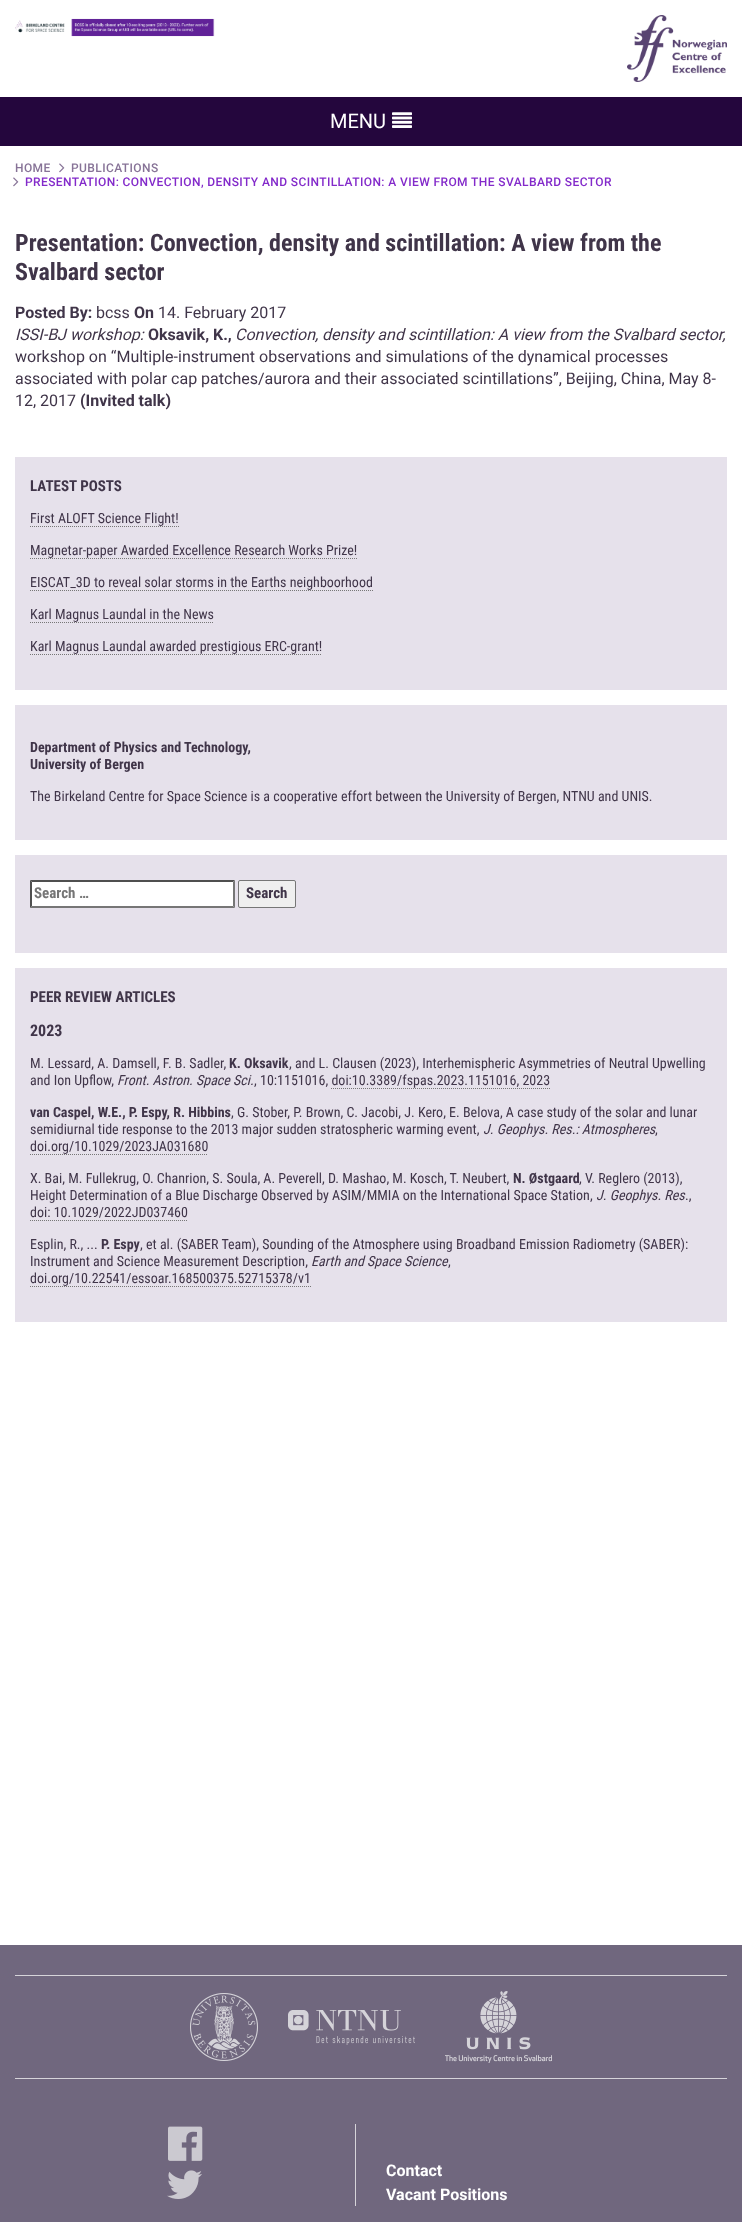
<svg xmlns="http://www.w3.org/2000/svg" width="742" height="2222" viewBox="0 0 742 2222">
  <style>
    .t1 { font: 20px Roboto; fill: #fff; }
    .t2 { font: 500 12px Roboto; letter-spacing: 0.4px; fill: #877397; }
    .t3 { font: 500 12px Roboto; letter-spacing: 0.4px; fill: #832aca; }
    .t4 { font: bold 24px Roboto Condensed; fill: #403549; }
    .t5 { font: bold 16px Roboto; fill: #403549; }
    .t6 { font: 16px Roboto; fill: #403549; }
    .t7 { font: italic 16px Roboto; fill: #403549; }
    .t8 { font: bold 15px Roboto Condensed; fill: #403549; }
    .t9 { font: 14px Roboto Condensed; fill: #403549; }
    .t10 { font: bold 14px Roboto Condensed; fill: #403549; }
    .t11 { font: bold 15px Roboto Condensed; fill: #757575; }
    .t12 { font: bold 16px Roboto Condensed; fill: #403549; }
    .t13 { font: italic 14px Roboto Condensed; fill: #403549; }
    .t14 { font: bold 16px Roboto; fill: #fff; }
  </style>
  <rect width="100%" height="100%" fill="#fff"/>
  <image x="15" y="18" width="200" height="19" href="images/1.png"/>
  <image x="627" y="15" width="100" height="67" href="images/2.png"/>
  <rect x="0" y="97" width="742" height="49" fill="#24063d"/>
  <text x="330" y="128" class="t1">MENU</text>
  <image x="392" y="112" width="20" height="16" href="images/3.png"/>
  <text x="15" y="172" class="t2">HOME</text>
  <image x="59" y="163" width="6" height="10" href="images/4.png"/>
  <text x="71" y="172" class="t2">PUBLICATIONS</text>
  <image x="13" y="177" width="6" height="10" href="images/4.png"/>
  <text x="25" y="186" class="t3">PRESENTATION: CONVECTION, DENSITY AND SCINTILLATION: A VIEW FROM THE SVALBARD SECTOR</text>
  <text x="15" y="251" class="t4">Presentation: Convection, density and scintillation: A view from the</text>
  <text x="15" y="280" class="t4">Svalbard sector</text>
  <text x="15" y="318" class="t5">Posted By:</text>
  <text x="96" y="318" class="t6">bcss</text>
  <text x="134" y="318" class="t5">On</text>
  <text x="158" y="318" class="t6">14. February 2017</text>
  <text x="15" y="340" class="t7">ISSI-BJ workshop:</text>
  <text x="148" y="340" class="t5">Oksavik, K.,</text>
  <text x="235" y="340" class="t7">Convection, density and scintillation: A view from the Svalbard sector,</text>
  <text x="15" y="362" class="t6">workshop on “Multiple-instrument observations and simulations of the dynamical processes</text>
  <text x="15" y="384" class="t6">associated with polar cap patches/aurora and their associated scintillations”, Beijing, China, May 8-</text>
  <text x="15" y="406" class="t6">12, 2017</text>
  <text x="80" y="406" class="t5">(Invited talk)</text>
  <rect x="15" y="457" width="712" height="233" fill="#e6e1eb"/>
  <text x="30" y="491" class="t8">LATEST POSTS</text>
  <text x="30" y="523" class="t9">First ALOFT Science Flight!</text>
  <path d="M30 526.5H179" fill="none" stroke="#777" stroke-dasharray="1 1"/>
  <text x="30" y="555" class="t9">Magnetar-paper Awarded Excellence Research Works Prize!</text>
  <path d="M30 558.5H357" fill="none" stroke="#777" stroke-dasharray="1 1"/>
  <text x="30" y="587" class="t9">EISCAT_3D to reveal solar storms in the Earths neighboorhood</text>
  <path d="M30 590.5H373" fill="none" stroke="#777" stroke-dasharray="1 1"/>
  <text x="30" y="619" class="t9">Karl Magnus Laundal in the News</text>
  <path d="M30 622.5H214" fill="none" stroke="#777" stroke-dasharray="1 1"/>
  <text x="30" y="651" class="t9">Karl Magnus Laundal awarded prestigious ERC-grant!</text>
  <path d="M30 654.5H322" fill="none" stroke="#777" stroke-dasharray="1 1"/>
  <rect x="15" y="705" width="712" height="135" fill="#e6e1eb"/>
  <text x="30" y="752" class="t10">Department of Physics and Technology,</text>
  <text x="30" y="769" class="t10">University of Bergen</text>
  <text x="30" y="801" class="t9">The Birkeland Centre for Space Science is a cooperative effort between the University of Bergen, NTNU and UNIS.</text>
  <rect x="15" y="855" width="712" height="98" fill="#e6e1eb"/>
  <rect x="30" y="880" width="205" height="28" fill="#fff"/>
  <path d="M30 880H235L233 882H32Z" fill="#4f4f4f"/>
  <path d="M235 880V908L233 906V882Z" fill="#767676"/>
  <path d="M235 908H30L32 906H233Z" fill="#767676"/>
  <path d="M30 908V880L32 882V906Z" fill="#4f4f4f"/>
  <text x="34" y="898" class="t11">Search …</text>
  <rect x="238.5" y="880.5" width="57" height="27" rx="1.5" fill="#efefef" stroke="#767676"/>
  <text x="246" y="898" class="t8">Search</text>
  <rect x="15" y="968" width="712" height="354" fill="#e6e1eb"/>
  <text x="30" y="1002" class="t8">PEER REVIEW ARTICLES</text>
  <text x="30" y="1036" class="t12">2023</text>
  <text x="30" y="1068" class="t9">M. Lessard, A. Damsell, F. B. Sadler,</text>
  <text x="229" y="1068" class="t10">K. Oksavik</text>
  <text x="289" y="1068" class="t9">, and L. Clausen (2023), Interhemispheric Asymmetries of Neutral Upwelling</text>
  <text x="30" y="1085" class="t9">and Ion Upflow,</text>
  <text x="117" y="1085" class="t13">Front. Astron. Space Sci.</text>
  <text x="254" y="1085" class="t9">, 10:1151016, doi:10.3389/fspas.2023.1151016, 2023</text>
  <path d="M331 1088.5H550" fill="none" stroke="#777" stroke-dasharray="1 1"/>
  <text x="30" y="1117" class="t10">van Caspel, W.E., P. Espy, R. Hibbins</text>
  <text x="231" y="1117" class="t9">, G. Stober, P. Brown, C. Jacobi, J. Kero, E. Belova, A case study of the solar and lunar</text>
  <text x="30" y="1134" class="t9">semidiurnal tide response to the 2013 major sudden stratospheric warming event,</text>
  <text x="483" y="1134" class="t13">J. Geophys. Res.: Atmospheres</text>
  <text x="655" y="1134" class="t9">,</text>
  <text x="30" y="1151" class="t9">doi.org/10.1029/2023JA031680</text>
  <path d="M30 1154.5H208" fill="none" stroke="#777" stroke-dasharray="1 1"/>
  <text x="30" y="1183" class="t9">X. Bai, M. Fullekrug, O. Chanrion, S. Soula, A. Peverell, D. Mashao, M. Kosch, T. Neubert,</text>
  <text x="513" y="1183" class="t10">N. Østgaard</text>
  <text x="579" y="1183" class="t9">, V. Reglero (2013),</text>
  <text x="30" y="1200" class="t9">Height Determination of a Blue Discharge Observed by ASIM/MMIA on the International Space Station,</text>
  <text x="596" y="1200" class="t13">J. Geophys. Res</text>
  <text x="685" y="1200" class="t9">.,</text>
  <text x="30" y="1217" class="t9">doi: 10.1029/2022JD037460</text>
  <path d="M30 1220.5H188" fill="none" stroke="#777" stroke-dasharray="1 1"/>
  <text x="30" y="1249" class="t9">Esplin, R., ...</text>
  <text x="101" y="1249" class="t10">P. Espy</text>
  <text x="140" y="1249" class="t9">, et al. (SABER Team), Sounding of the Atmosphere using Broadband Emission Radiometry (SABER):</text>
  <text x="30" y="1266" class="t9">Instrument and Science Measurement Description,</text>
  <text x="311" y="1266" class="t13">Earth and Space Science</text>
  <text x="448" y="1266" class="t9">,</text>
  <text x="30" y="1283" class="t9">doi.org/10.22541/essoar.168500375.52715378/v1</text>
  <path d="M30 1286.5H311" fill="none" stroke="#777" stroke-dasharray="1 1"/>
  <rect x="0" y="1945" width="742" height="277" fill="#70677e"/>
  <rect x="15" y="1975" width="712" height="1" fill="#d6d4d9"/>
  <rect x="15" y="2078" width="712" height="1" fill="#d6d4d9"/>
  <image x="190" y="1993" width="68" height="68" href="images/5.png"/>
  <image x="288" y="2010" width="127" height="35" href="images/6.png"/>
  <image x="445" y="1991" width="107" height="72" href="images/7.png"/>
  <rect x="355" y="2124" width="1" height="82" fill="#d6d4d9"/>
  <image x="168" y="2126" width="35" height="35" href="images/8.png"/>
  <image x="167" y="2170" width="35" height="29" href="images/9.png"/>
  <text x="386" y="2176" class="t14">Contact</text>
  <text x="386" y="2200" class="t14">Vacant Positions</text>
</svg>
